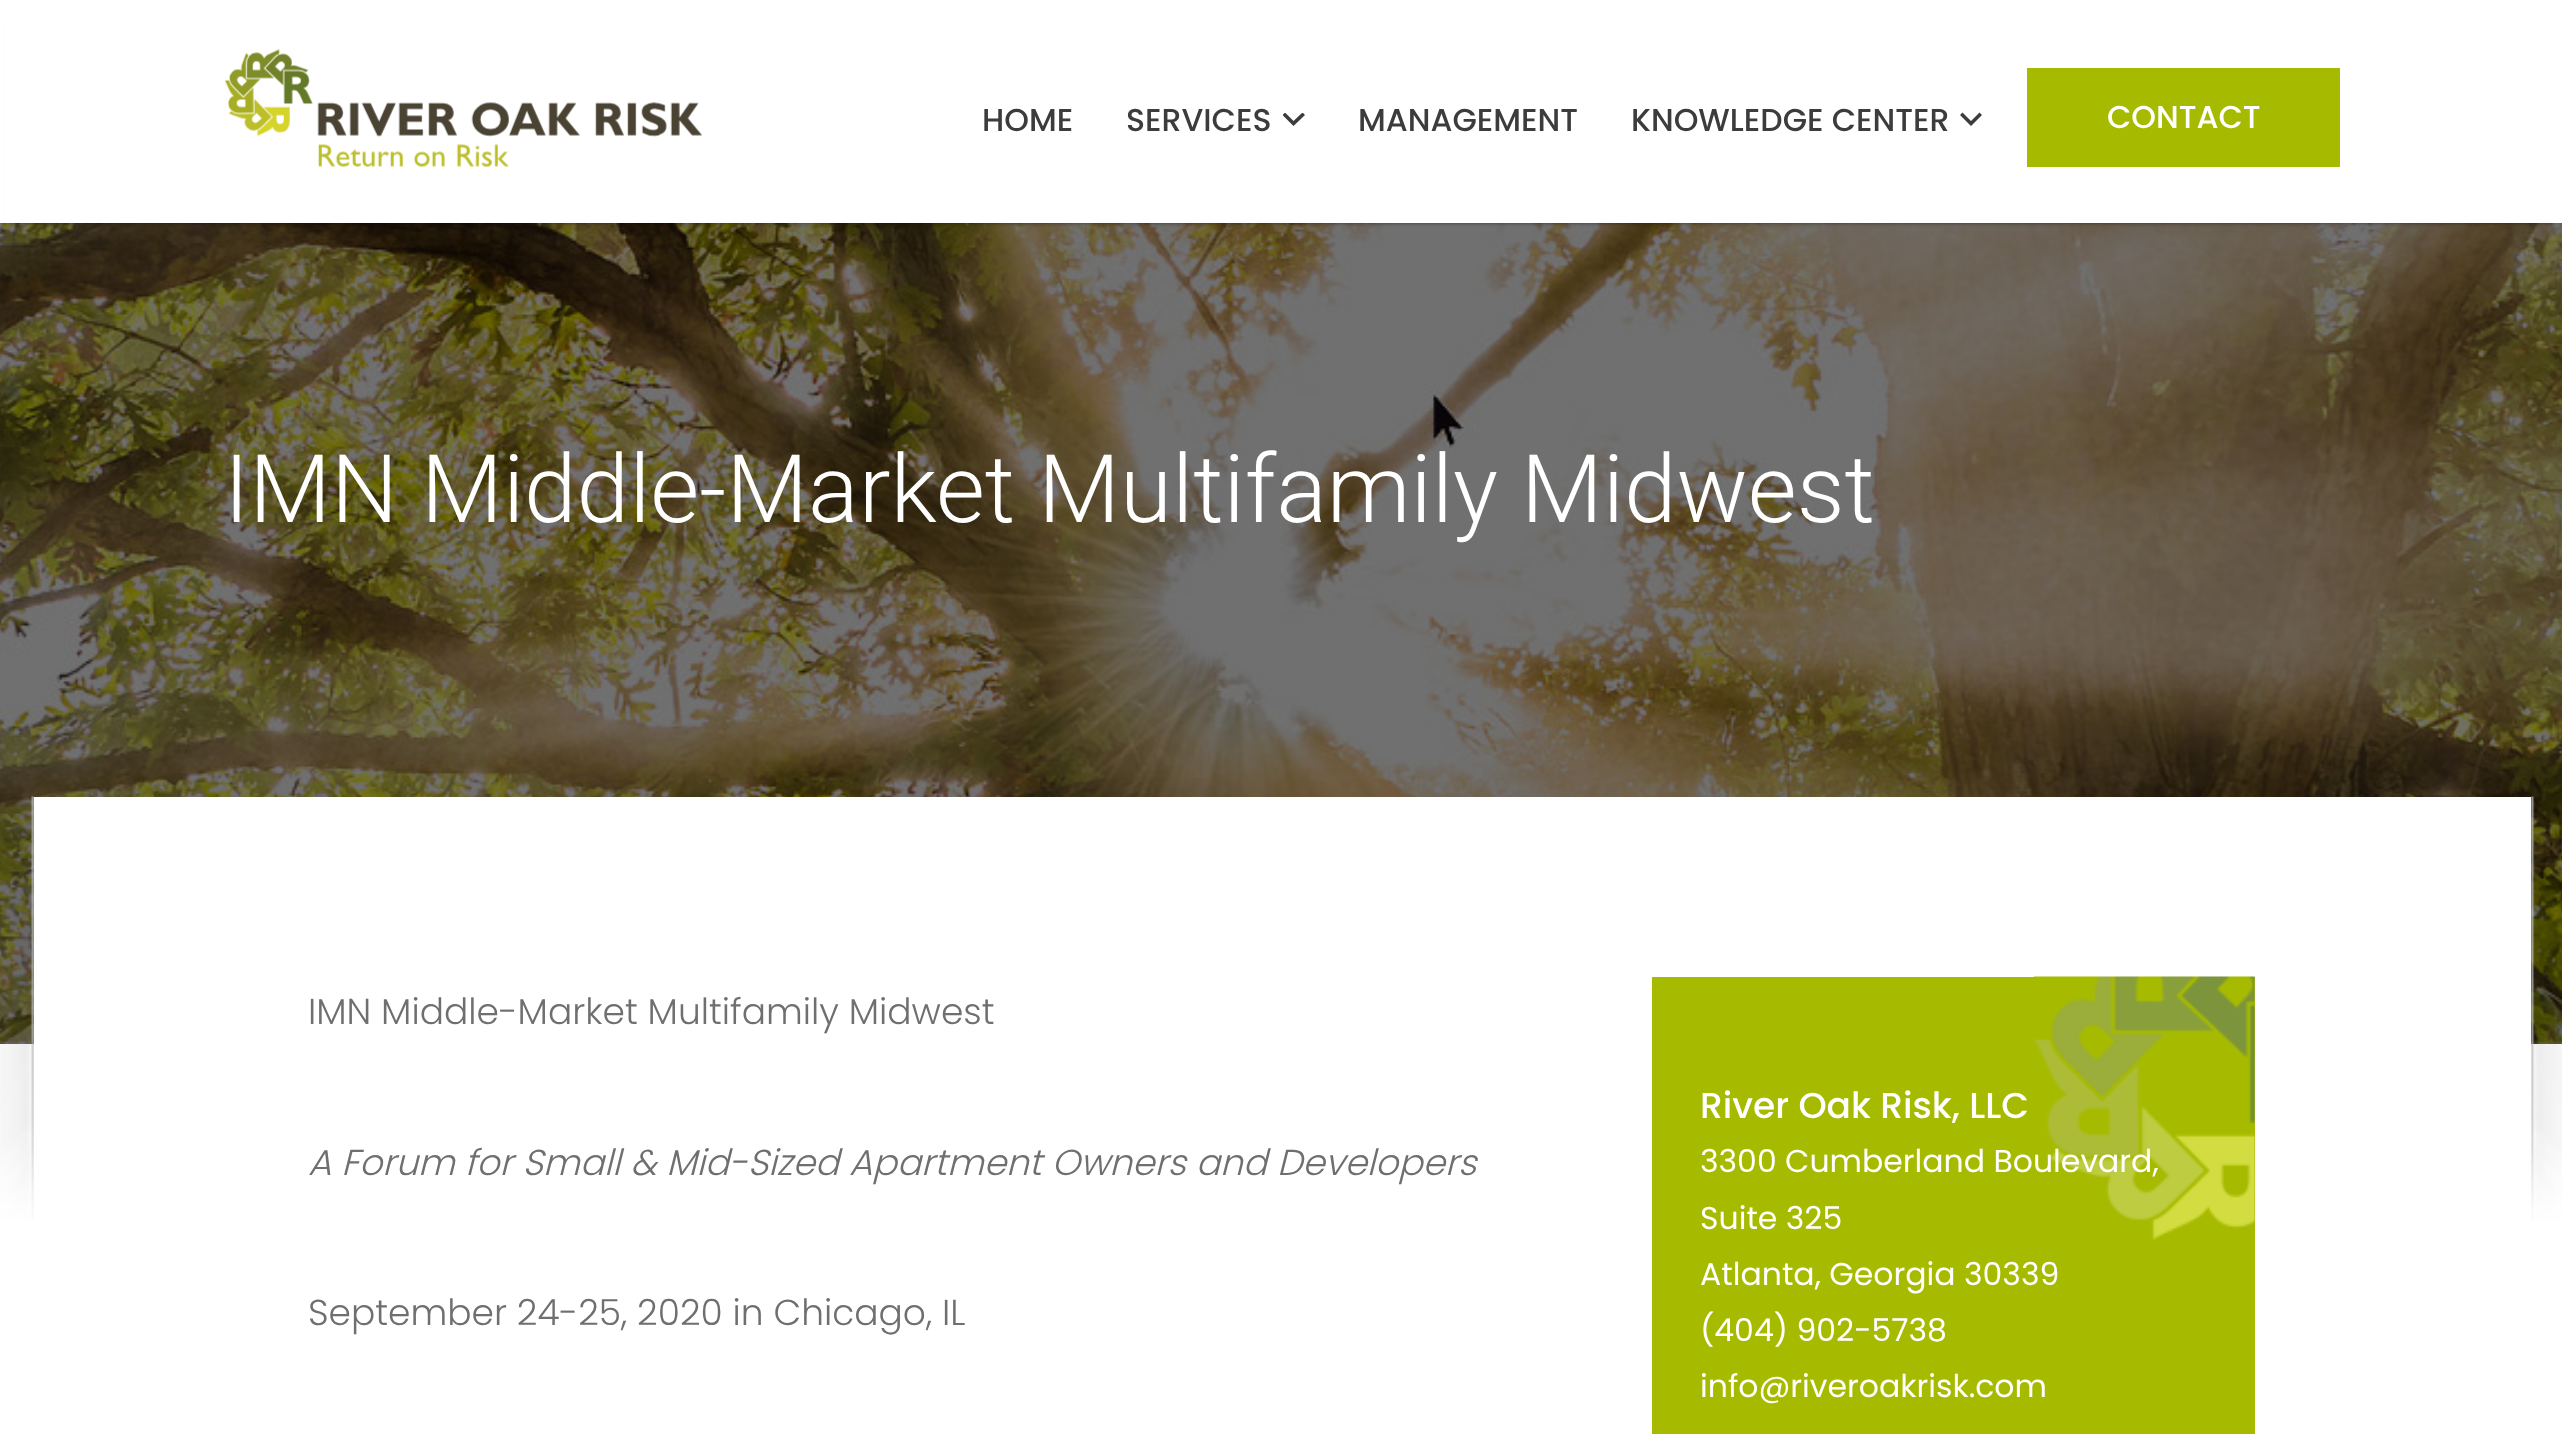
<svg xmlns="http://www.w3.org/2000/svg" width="2562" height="1434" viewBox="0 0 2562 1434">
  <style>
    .t1 { font: 500 31.5px Poppins; fill: #3c3c3c; }
    .t2 { font: 500 31.5px Poppins; fill: #fff; }
    .t3 { font: 300 94.5px Roboto; fill: #fff; }
    .t4 { font: 300 36px Poppins; fill: #6f6f6f; }
    .t5 { font: italic 300 36px Poppins; fill: #6f6f6f; }
    .t6 { font: 500 36px Poppins; fill: #fff; }
    .t7 { font: 31.5px Poppins; fill: #fff; }
  </style>
  <defs>
    <clipPath id="clip1"><rect x="1283" y="113" width="22" height="13"/></clipPath>
  </defs>
  <rect width="100%" height="100%" fill="#fff"/>
  <image x="0" y="223" width="2562" height="821" href="images/2.png"/>
  <rect x="9" y="18" width="2545" height="205" fill="#00000082" filter="blur(2px)"/>
  <rect x="5" y="14" width="2553" height="209" fill="#fff"/>
  <image x="224" y="49" width="478" height="118" href="images/1.png"/>
  <text x="982" y="131" class="t1">HOME</text>
  <g clip-path="url(#clip1)">
    <path d="M1293.5 121L1302.5 112.5L1305 115L1293.5 126L1282.5 115L1285 112.5Z" fill="#3c3c3c"/>
  </g>
  <text x="1126" y="131" class="t1">SERVICES</text>
  <text x="1358" y="131" class="t1">MANAGEMENT</text>
  <path d="M1971 121L1979.5 112.5L1982 115L1971 126L1960 115L1962.5 112.5Z" fill="#3c3c3c"/>
  <text x="1631" y="131" class="t1">KNOWLEDGE CENTER</text>
  <rect x="2027" y="68" width="313" height="99" fill="#a6bb00"/>
  <text x="2107" y="128" class="t2">CONTACT</text>
  <text x="224" y="522" class="t3">IMN Middle-Market Multifamily Midwest</text>
  <rect x="34" y="797" width="2497" height="247" fill="#fff"/>
  <image x="0" y="796" width="34" height="424" href="images/3.png"/>
  <image x="2531" y="796" width="31" height="425" href="images/4.png"/>
  <text x="308" y="1024" class="t4">IMN Middle-Market Multifamily Midwest</text>
  <text x="308" y="1175" class="t5">A Forum for Small &amp; Mid-Sized Apartment Owners and Developers</text>
  <text x="308" y="1325" class="t4">September 24-25, 2020 in Chicago, IL</text>
  <rect x="1652" y="977" width="603" height="457" fill="#a6bb00"/>
  <image x="2034" y="976" width="221" height="264" href="images/5.png"/>
  <text x="1700" y="1118" class="t6">River Oak Risk, LLC</text>
  <text x="1700" y="1172" class="t7">3300 Cumberland Boulevard,</text>
  <text x="1700" y="1229" class="t7">Suite 325</text>
  <text x="1700" y="1285" class="t7">Atlanta, Georgia 30339</text>
  <text x="1700" y="1341" class="t7">(404) 902-5738</text>
  <text x="1700" y="1397" class="t7">info@riveroakrisk.com</text>
</svg>
